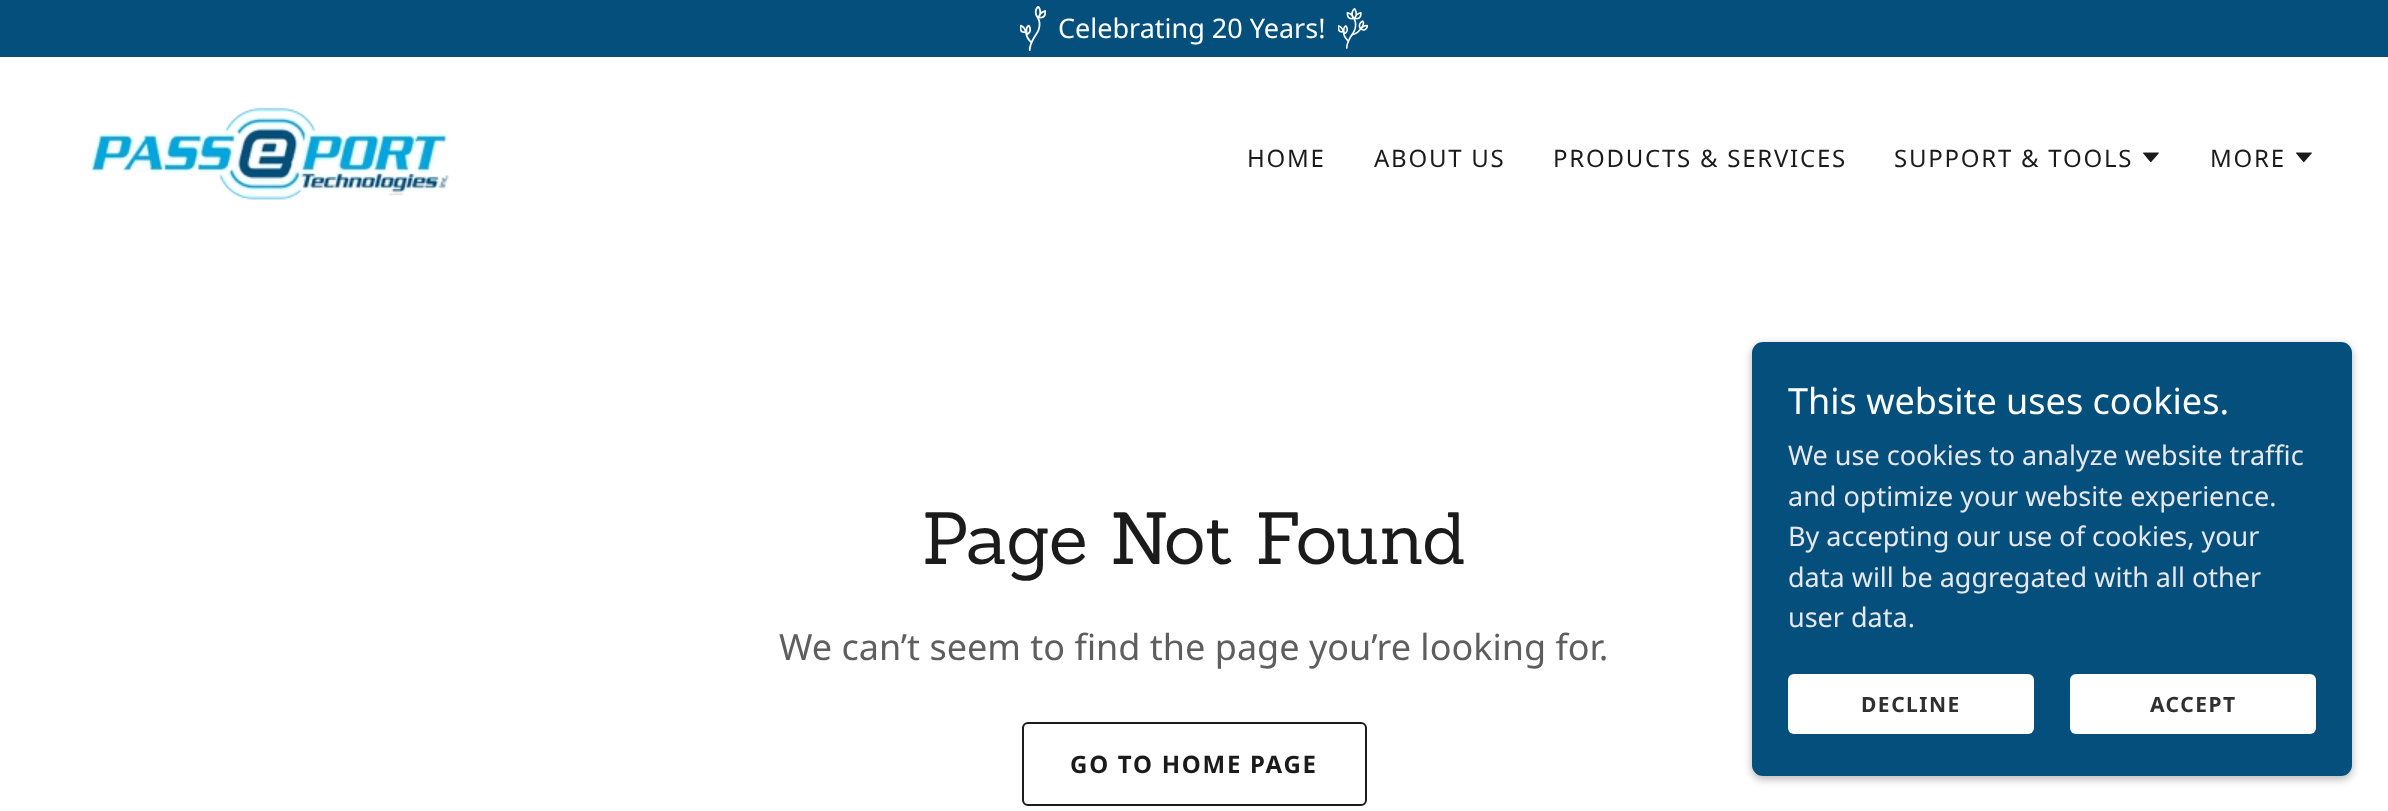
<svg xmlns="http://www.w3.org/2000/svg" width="2388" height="811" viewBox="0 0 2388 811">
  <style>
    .t1 { font: 27px Noto Sans; fill: #fff; }
    .t2 { font: 24px Noto Sans; letter-spacing: 1.75px; fill: #1b1b1b; }
    .t3 { font: 72px Sanchez; fill: #1b1b1b; }
    .t4 { font: 36px Noto Sans; fill: #5e5e5e; }
    .t5 { font: bold 24px Noto Sans; letter-spacing: 1.75px; fill: #1b1b1b; }
    .t6 { font: 36px Noto Sans; fill: #fff; }
    .t7 { font: 27px Noto Sans; fill: #e7e8eb; }
    .t8 { font: bold 21px Noto Sans; letter-spacing: 1.5px; fill: #303030; }
  </style>
  <rect width="100%" height="100%" fill="#fff"/>
  <rect x="0" y="0" width="2388" height="57" fill="#054f7d"/>
  <image x="1020" y="6" width="26" height="45" href="images/1.png"/>
  <text x="1058" y="38" class="t1">Celebrating 20 Years!</text>
  <image x="1338" y="7" width="30" height="42" href="images/2.png"/>
  <image x="90" y="107" width="359" height="93" href="images/3.png"/>
  <text x="1247" y="167" class="t2">HOME</text>
  <text x="1374" y="167" class="t2">ABOUT US</text>
  <text x="1553" y="167" class="t2">PRODUCTS &amp; SERVICES</text>
  <text x="1894" y="167" class="t2">SUPPORT &amp; TOOLS</text>
  <image x="2143" y="152" width="16" height="11" href="images/4.png"/>
  <text x="2210" y="167" class="t2">MORE</text>
  <image x="2296" y="152" width="16" height="11" href="images/4.png"/>
  <text x="922" y="564" class="t3">Page Not Found</text>
  <text x="779" y="660" class="t4">We can’t seem to find the page you’re looking for.</text>
  <rect x="1023" y="723" width="343" height="82" rx="5" fill="none" stroke="#1b1b1b" stroke-width="2"/>
  <text x="1070" y="773" class="t5">GO TO HOME PAGE</text>
  <rect x="1752" y="345" width="600" height="434" rx="11" fill="#0000004d" filter="blur(4.5px)"/>
  <rect x="1752" y="342" width="600" height="434" rx="11" fill="#054f7d"/>
  <text x="1788" y="414" class="t6">This website uses cookies.</text>
  <text x="1788" y="465" class="t7">We use cookies to analyze website traffic</text>
  <text x="1788" y="506" class="t7">and optimize your website experience.</text>
  <text x="1788" y="546" class="t7">By accepting our use of cookies, your</text>
  <text x="1788" y="587" class="t7">data will be aggregated with all other</text>
  <text x="1788" y="627" class="t7">user data.</text>
  <rect x="1788" y="674" width="246" height="60" rx="6" fill="#fff"/>
  <text x="1861" y="712" class="t8">DECLINE</text>
  <rect x="2070" y="674" width="246" height="60" rx="6" fill="#fff"/>
  <text x="2150" y="712" class="t8">ACCEPT</text>
</svg>
